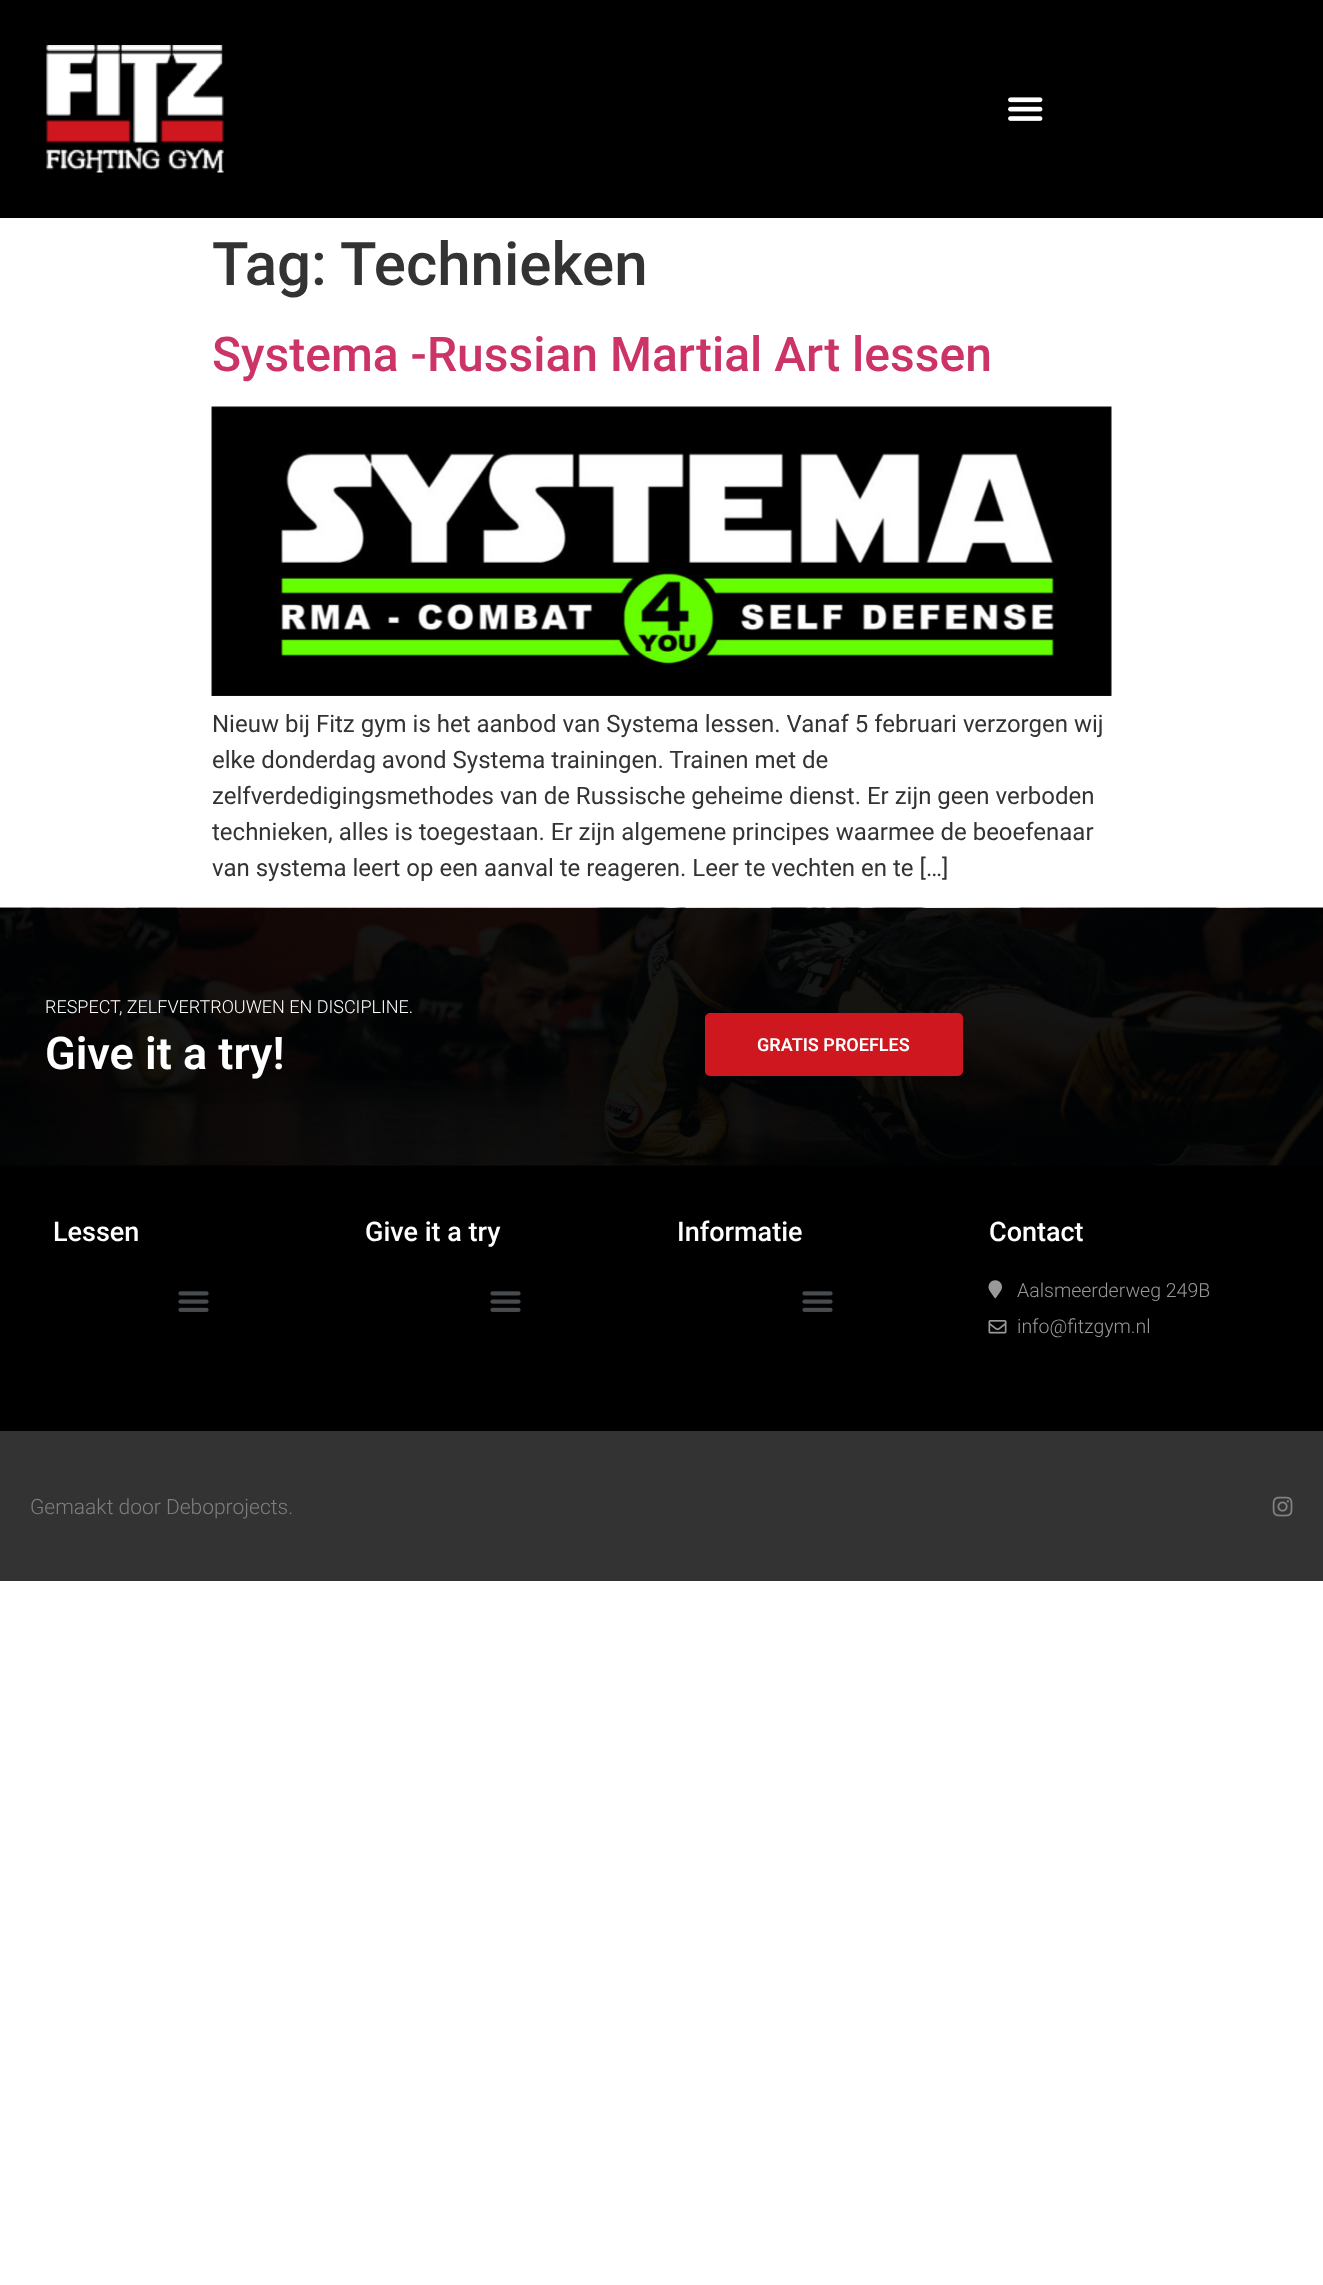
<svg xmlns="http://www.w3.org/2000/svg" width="1323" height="2285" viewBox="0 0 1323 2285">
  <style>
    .t1 { font: 500 60px Roboto; fill: #333; }
    .t2 { font: 500 48px Roboto; fill: #c36; }
    .t3 { font: 24px Roboto; fill: #333; }
    .t4 { font: 300 18px Roboto; fill: #fff; }
    .t5 { font: 600 45px Roboto; fill: #fff; }
    .t6 { font: 600 18px Roboto; fill: #fff; }
    .t7 { font: 500 27px Roboto; fill: #fff; }
    .t8 { font: 300 19.5px Roboto; fill: #999; }
    .t9 { font: 300 21px Roboto; fill: #7e7e7e; }
  </style>
  <rect width="100%" height="100%" fill="#fff"/>
  <rect x="0" y="0" width="1323" height="218" fill="#000"/>
  <image x="46" y="45" width="178" height="128" href="images/1.png"/>
  <image x="1008" y="97" width="35" height="24" href="images/2.png"/>
  <text x="212" y="285" class="t1">Tag:</text>
  <text x="340" y="285" class="t1">Technieken</text>
  <text x="212" y="371" class="t2">Systema -Russian Martial Art lessen</text>
  <image x="211" y="406" width="901" height="290" href="images/3.png"/>
  <text x="212" y="732" class="t3">Nieuw bij Fitz gym is het aanbod van Systema lessen. Vanaf 5 februari verzorgen wij</text>
  <text x="212" y="768" class="t3">elke donderdag avond Systema trainingen. Trainen met de</text>
  <text x="212" y="804" class="t3">zelfverdedigingsmethodes van de Russische geheime dienst. Er zijn geen verboden</text>
  <text x="212" y="840" class="t3">technieken, alles is toegestaan. Er zijn algemene principes waarmee de beoefenaar</text>
  <text x="212" y="876" class="t3">van systema leert op een aanval te reageren. Leer te vechten en te […]</text>
  <rect x="0" y="1165" width="1323" height="266" fill="#000"/>
  <image x="0" y="907" width="1323" height="259" href="images/4.png"/>
  <text x="45" y="1013" class="t4">RESPECT, ZELFVERTROUWEN EN DISCIPLINE.</text>
  <text x="45" y="1069" class="t5">Give it a try!</text>
  <rect x="705" y="1013" width="258" height="63" rx="5" fill="#ce171e"/>
  <text x="757" y="1051" class="t6">GRATIS PROEFLES</text>
  <text x="53" y="1241" class="t7">Lessen</text>
  <image x="178" y="1291" width="31" height="21" href="images/5.png"/>
  <text x="365" y="1241" class="t7">Give it a try</text>
  <image x="490" y="1291" width="31" height="21" href="images/5.png"/>
  <text x="677" y="1241" class="t7">Informatie</text>
  <image x="802" y="1291" width="31" height="21" href="images/5.png"/>
  <text x="989" y="1241" class="t7">Contact</text>
  <image x="988" y="1280" width="14" height="19" href="images/6.png"/>
  <text x="1017" y="1297" class="t8">Aalsmeerderweg 249B</text>
  <image x="988" y="1320" width="19" height="14" href="images/7.png"/>
  <text x="1017" y="1333" class="t8">info@fitzgym.nl</text>
  <rect x="0" y="1431" width="1323" height="150" fill="#333"/>
  <text x="30" y="1514" class="t9">Gemaakt door Deboprojects.</text>
  <image x="1272" y="1496" width="21" height="21" href="images/8.png"/>
</svg>
